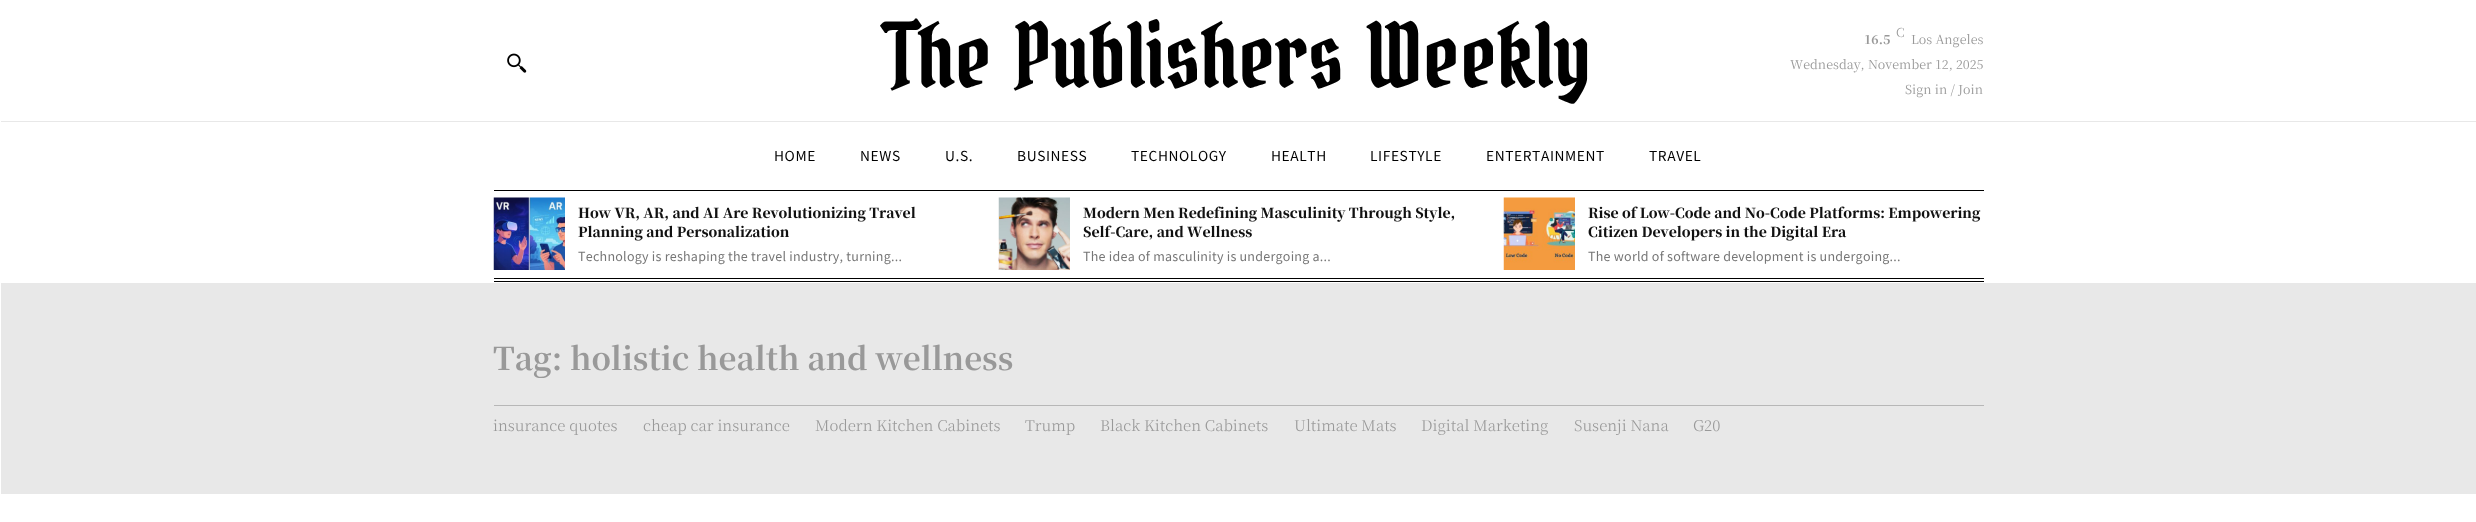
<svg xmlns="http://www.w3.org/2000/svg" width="2476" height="522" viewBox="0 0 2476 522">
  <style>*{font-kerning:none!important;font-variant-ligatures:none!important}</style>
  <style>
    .t1 { font: 87.5px Bokor; fill: #000; }
    .t2 { font: 300 12.5px Noto Serif JP; fill: #999; }
    .t3 { font: bold 12.5px Noto Serif JP; fill: #999; }
    .t4 { font: 12.5px Noto Serif JP; fill: #999; }
    .t5 { font: 100 13.75px Noto Sans JP; letter-spacing: 0.6px; fill: #000; }
    .t6 { font: 900 13.75px Noto Serif JP; fill: #111; }
    .t7 { font: 100 12.5px Noto Sans JP; letter-spacing: 0.25px; fill: #767676; }
    .t8 { font: bold 31.25px Noto Serif JP; fill: #999; }
    .t9 { font: 300 15px Noto Serif JP; fill: #999; }
  </style>
  <rect width="100%" height="100%" fill="#fff"/>
  <image x="507" y="53" width="20" height="20" href="images/1.png"/>
  <text x="885" y="88" class="t1">The Publishers Weekly</text>
  <text x="1896" y="37" class="t2">C</text>
  <text x="1864" y="44" class="t3">16.5</text>
  <text x="1911" y="44" class="t4">Los Angeles</text>
  <text x="1790" y="69" class="t4">Wednesday, November 12, 2025</text>
  <text x="1905" y="94" class="t4">Sign in / Join</text>
  <rect x="1" y="121" width="2475" height="1" fill="#e8e8e8"/>
  <text x="774" y="161" class="t5">HOME</text>
  <text x="860" y="161" class="t5">NEWS</text>
  <text x="945" y="161" class="t5">U.S.</text>
  <text x="1017" y="161" class="t5">BUSINESS</text>
  <text x="1131" y="161" class="t5">TECHNOLOGY</text>
  <text x="1271" y="161" class="t5">HEALTH</text>
  <text x="1370" y="161" class="t5">LIFESTYLE</text>
  <text x="1486" y="161" class="t5">ENTERTAINMENT</text>
  <text x="1649" y="161" class="t5">TRAVEL</text>
  <rect x="494" y="190" width="1490" height="1" fill="#000"/>
  <rect x="494" y="281" width="1490" height="1" fill="#000"/>
  <image x="493" y="197" width="72" height="73" href="images/2.png"/>
  <text x="578" y="218" class="t6">How VR, AR, and AI Are Revolutionizing Travel</text>
  <text x="578" y="237" class="t6">Planning and Personalization</text>
  <text x="578" y="261" class="t7">Technology is reshaping the travel industry, turning...</text>
  <image x="998" y="197" width="72" height="73" href="images/3.png"/>
  <text x="1083" y="218" class="t6">Modern Men Redefining Masculinity Through Style,</text>
  <text x="1083" y="237" class="t6">Self-Care, and Wellness</text>
  <text x="1083" y="261" class="t7">The idea of masculinity is undergoing a...</text>
  <image x="1503" y="197" width="72" height="73" href="images/4.png"/>
  <text x="1588" y="218" class="t6">Rise of Low-Code and No-Code Platforms: Empowering</text>
  <text x="1588" y="237" class="t6">Citizen Developers in the Digital Era</text>
  <text x="1588" y="261" class="t7">The world of software development is undergoing...</text>
  <rect x="494" y="278" width="1490" height="1" fill="#000"/>
  <rect x="1" y="283" width="2475" height="211" fill="#e8e8e8"/>
  <text x="493" y="370" class="t8">Tag: holistic health and wellness</text>
  <rect x="494" y="405" width="1490" height="1" fill="#b7b7b7"/>
  <text x="493" y="431" class="t9">insurance quotes</text>
  <text x="643" y="431" class="t9">cheap car insurance</text>
  <text x="815" y="431" class="t9">Modern Kitchen Cabinets</text>
  <text x="1025" y="431" class="t9">Trump</text>
  <text x="1100" y="431" class="t9">Black Kitchen Cabinets</text>
  <text x="1294" y="431" class="t9">Ultimate Mats</text>
  <text x="1421" y="431" class="t9">Digital Marketing</text>
  <text x="1574" y="431" class="t9">Susenji Nana</text>
  <text x="1693" y="431" class="t9">G20</text>
</svg>
